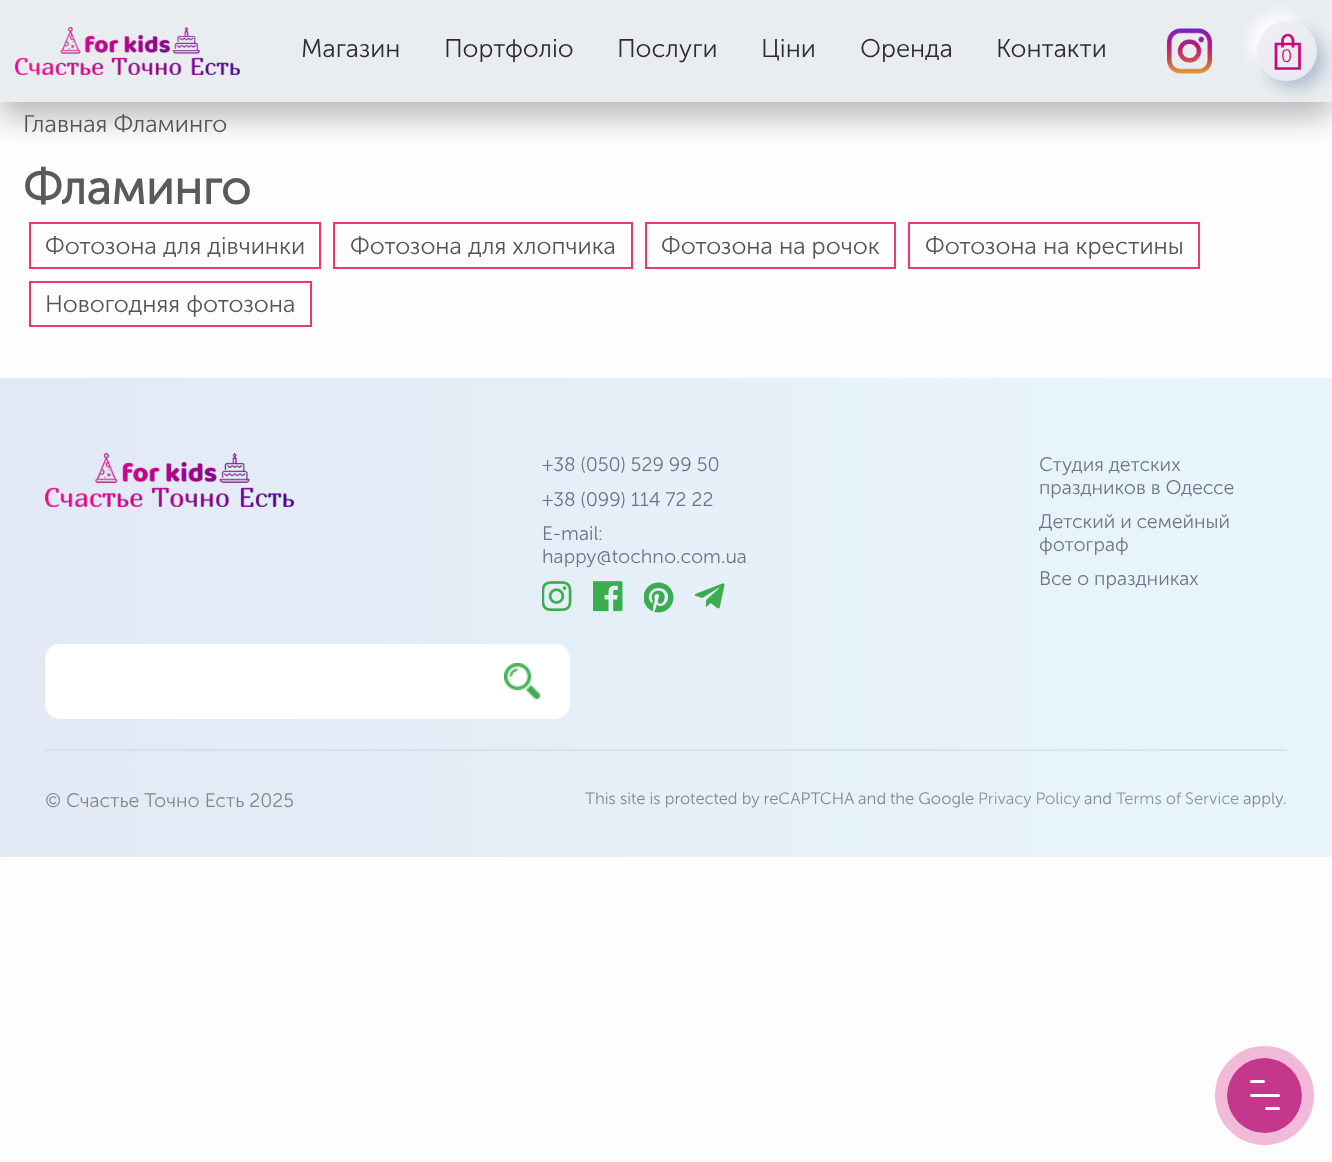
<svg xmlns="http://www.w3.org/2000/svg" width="1332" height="1162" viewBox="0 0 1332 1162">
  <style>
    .t1 { font: 300 25.5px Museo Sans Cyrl; fill: #2d2d2d; }
    .t2 { font: 300 18px Museo Sans Cyrl; fill: #d40278; }
    .t3 { font: 300 24px Museo Sans Cyrl; fill: #545454; }
    .t4 { font: bold 48px Museo Sans Cyrl; fill: #5a5a5a; }
    .t5 { font: 300 19.5px Museo Sans Cyrl; fill: #6e738c; }
    .t6 { font: 300 19.5px Museo Sans Cyrl; fill: #83878b; }
    .t7 { font: 300 16.5px Museo Sans Cyrl; fill: #83878b; }
    .t8 { font: 300 16.5px Museo Sans Cyrl; fill: #8f9496; }
  </style>
  <defs>
    <linearGradient id="g1" gradientUnits="userSpaceOnUse" x1="1257" y1="21" x2="1317" y2="81"><stop offset="0.05" stop-color="#eef0f5"/><stop offset="0.95" stop-color="#e6e9ef"/></linearGradient>
    <linearGradient id="g2" gradientUnits="userSpaceOnUse" x1="0" y1="617" x2="1332" y2="617"><stop offset="0" stop-color="#e2e9f5"/><stop offset="1" stop-color="#e8f6fa"/></linearGradient>
    <linearGradient id="g3" gradientUnits="userSpaceOnUse" x1="0" y1="617" x2="1332" y2="617"><stop offset="0" stop-color="#d8dfeb"/><stop offset="1" stop-color="#d9e2ed"/></linearGradient>
  </defs>
  <rect width="100%" height="100%" fill="#fdfdfd"/>
  <rect x="0" y="15" width="1332" height="102" fill="#00000045" filter="blur(15px)"/>
  <rect x="0" y="0" width="1332" height="102" fill="#e9edf0"/>
  <image x="15" y="27" width="225" height="49" href="images/1.png"/>
  <text x="301" y="57" class="t1">Магазин</text>
  <text x="444" y="57" class="t1">Портфоліо</text>
  <text x="617" y="57" class="t1">Послуги</text>
  <text x="761" y="57" class="t1">Ціни</text>
  <text x="860" y="57" class="t1">Оренда</text>
  <text x="996" y="57" class="t1">Контакти</text>
  <image x="1167" y="28" width="45" height="46" href="images/2.png"/>
  <rect x="1250" y="14" width="60" height="60" rx="30" fill="#fff" filter="blur(7.5px)"/>
  <rect x="1265" y="29" width="60" height="60" rx="30" fill="#a6b4c8cc" filter="blur(7.5px)"/>
  <circle cx="1287" cy="51" r="30" fill="url(#g1)"/>
  <path d="M1294 44H1299.5V68.5H1276V44H1281.5ZM1282.5 47.5V40.5C1282.5 37.5 1285 35 1288 35C1290.5 35 1293 37.5 1293 40.5V47.5" fill="none" stroke="#d40278" stroke-width="2.7"/>
  <text x="1281" y="62" class="t2">0</text>
  <text x="23" y="132" class="t3">Главная Фламинго</text>
  <text x="23" y="204" class="t4">Фламинго</text>
  <rect x="30" y="223" width="290" height="45" fill="none" stroke="#ed3868" stroke-width="2"/>
  <text x="45" y="254" class="t3">Фотозона для дівчинки</text>
  <rect x="334" y="223" width="298" height="45" fill="none" stroke="#ed3868" stroke-width="2"/>
  <text x="350" y="254" class="t3">Фотозона для хлопчика</text>
  <rect x="646" y="223" width="249" height="45" fill="none" stroke="#ed3868" stroke-width="2"/>
  <text x="661" y="254" class="t3">Фотозона на рочок</text>
  <rect x="909" y="223" width="290" height="45" fill="none" stroke="#ed3868" stroke-width="2"/>
  <text x="925" y="254" class="t3">Фотозона на крестины</text>
  <rect x="30" y="282" width="281" height="44" fill="none" stroke="#ed3868" stroke-width="2"/>
  <text x="45" y="312" class="t3">Новогодняя фотозона</text>
  <rect x="0" y="378" width="1332" height="479" fill="url(#g2)"/>
  <rect x="45" y="749" width="1242" height="2" fill="url(#g3)"/>
  <image x="45" y="453" width="249" height="54" href="images/3.png"/>
  <text x="542" y="471" class="t5">+38 (050) 529 99 50</text>
  <text x="542" y="506" class="t5">+38 (099) 114 72 22</text>
  <text x="542" y="540" class="t5">E-mail:</text>
  <text x="542" y="563" class="t5">happy@tochno.com.ua</text>
  <image x="542" y="581" width="30" height="31" href="images/4.png"/>
  <image x="593" y="581" width="30" height="31" href="images/5.png"/>
  <image x="644" y="582" width="30" height="31" href="images/6.png"/>
  <image x="695" y="583" width="30" height="26" href="images/7.png"/>
  <text x="1039" y="471" class="t5">Студия детских</text>
  <text x="1039" y="494" class="t5">праздников в Одессе</text>
  <text x="1039" y="528" class="t5">Детский и семейный</text>
  <text x="1039" y="551" class="t5">фотограф</text>
  <text x="1039" y="585" class="t5">Все о праздниках</text>
  <rect x="45" y="644" width="525" height="75" rx="15" fill="#fff"/>
  <image x="504" y="663" width="36" height="36" href="images/8.png"/>
  <text x="45" y="807" class="t6">© Счастье Точно Есть 2025</text>
  <text x="585" y="804" class="t7">This site is protected by reCAPTCHA and the Google</text>
  <text x="978" y="804" class="t8">Privacy Policy</text>
  <text x="1084" y="804" class="t7">and</text>
  <text x="1116" y="804" class="t8">Terms of Service</text>
  <text x="1243" y="804" class="t7">apply.</text>
  <circle cx="1264.5" cy="1095.5" r="43.5" fill="none" stroke="#f2b9d9" stroke-width="12"/>
  <circle cx="1264.5" cy="1095.5" r="37.5" fill="#c5378d"/>
  <rect x="1250" y="1080" width="15" height="3" rx="1.5" fill="#fff"/>
  <rect x="1250" y="1094" width="30" height="3" rx="1.5" fill="#fff"/>
  <rect x="1265" y="1107" width="15" height="3" rx="1.5" fill="#fff"/>
</svg>
